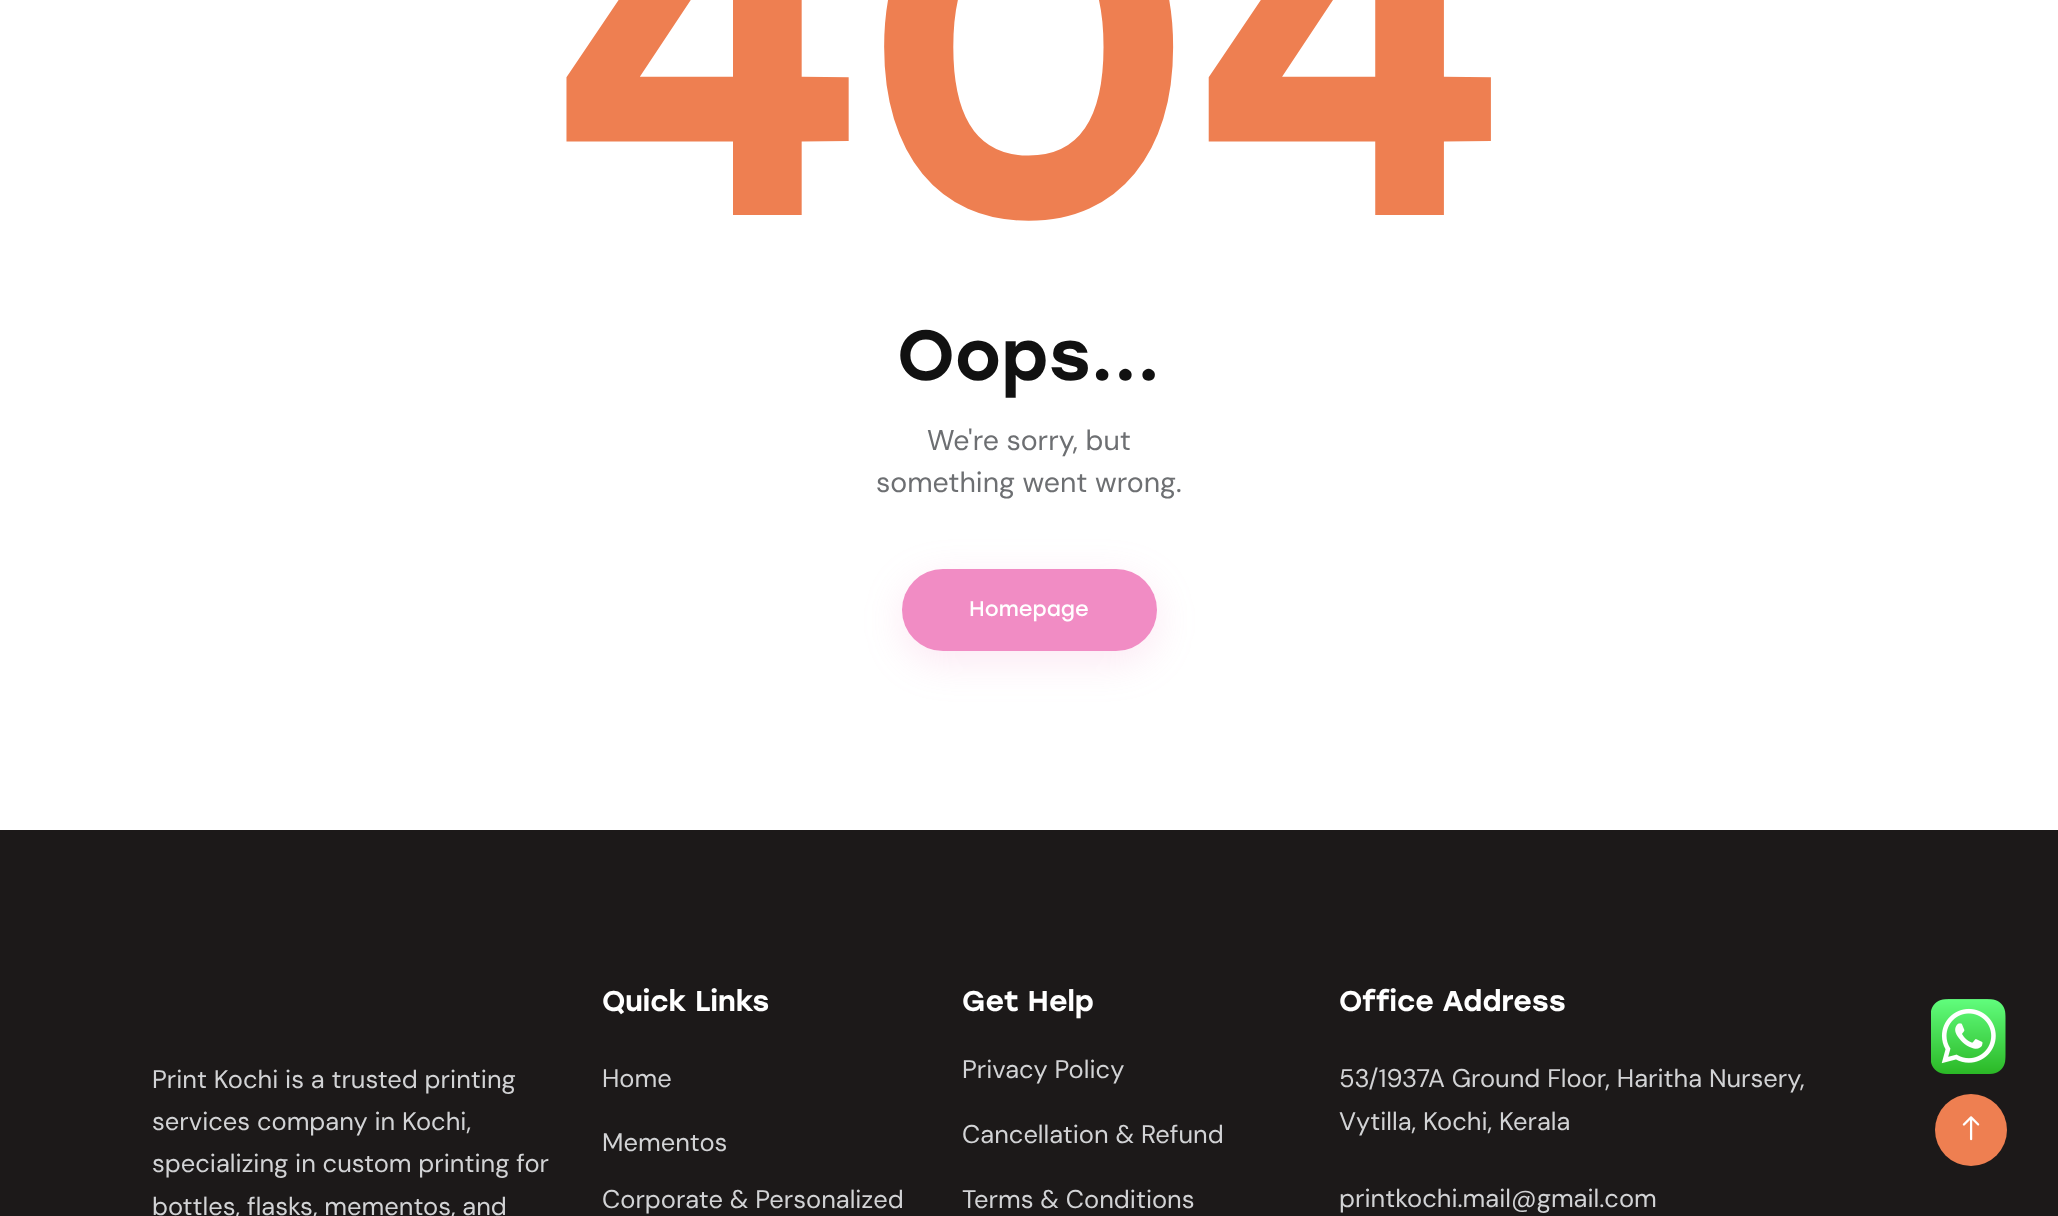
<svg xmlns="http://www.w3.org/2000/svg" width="2058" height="1216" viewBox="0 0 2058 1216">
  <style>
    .t1 { font: 500 480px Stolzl; fill: #ee7f51; }
    .t2 { font: 500 70.5px Stolzl; fill: #111; }
    .t3 { font: 28.5px DM Sans; fill: #6d6f72; }
    .t4 { font: 21px Stolzl; fill: #fff; }
    .t5 { font: 25.5px DM Sans; fill: #d2d3d5; }
    .t6 { font: 500 28.5px Stolzl; fill: #fff; }
  </style>
  <rect width="100%" height="100%" fill="#fff"/>
  <text x="553" y="215" class="t1">404</text>
  <text x="897" y="380" class="t2">Oops...</text>
  <text x="927" y="450" class="t3">We're sorry, but</text>
  <text x="876" y="492" class="t3">something went wrong.</text>
  <rect x="902" y="579" width="255" height="83" rx="41.5" fill="#f18cc433" filter="blur(19px)"/>
  <rect x="902" y="569" width="255" height="82" rx="41" fill="#f18cc4"/>
  <text x="969" y="616" class="t4">Homepage</text>
  <rect x="0" y="830" width="2058" height="386" fill="#1c1919"/>
  <text x="152" y="1088" class="t5">Print Kochi is a trusted printing</text>
  <text x="152" y="1130" class="t5">services company in Kochi,</text>
  <text x="152" y="1172" class="t5">specializing in custom printing for</text>
  <text x="152" y="1215" class="t5">bottles, flasks, mementos, and</text>
  <text x="602" y="1011" class="t6">Quick Links</text>
  <text x="602" y="1087" class="t5">Home</text>
  <text x="602" y="1151" class="t5">Mementos</text>
  <text x="602" y="1208" class="t5">Corporate &amp; Personalized</text>
  <text x="962" y="1011" class="t6">Get Help</text>
  <text x="962" y="1078" class="t5">Privacy Policy</text>
  <text x="962" y="1143" class="t5">Cancellation &amp; Refund</text>
  <text x="962" y="1208" class="t5">Terms &amp; Conditions</text>
  <text x="1339" y="1011" class="t6">Office Address</text>
  <text x="1339" y="1087" class="t5">53/1937A Ground Floor, Haritha Nursery,</text>
  <text x="1339" y="1130" class="t5">Vytilla, Kochi, Kerala</text>
  <text x="1339" y="1207" class="t5">printkochi.mail@gmail.com</text>
  <image x="1931" y="999" width="75" height="75" href="images/1.png"/>
  <circle cx="1971" cy="1130" r="36" fill="#ee7f51"/>
  <image x="1962" y="1116" width="18" height="25" href="images/2.png"/>
</svg>
